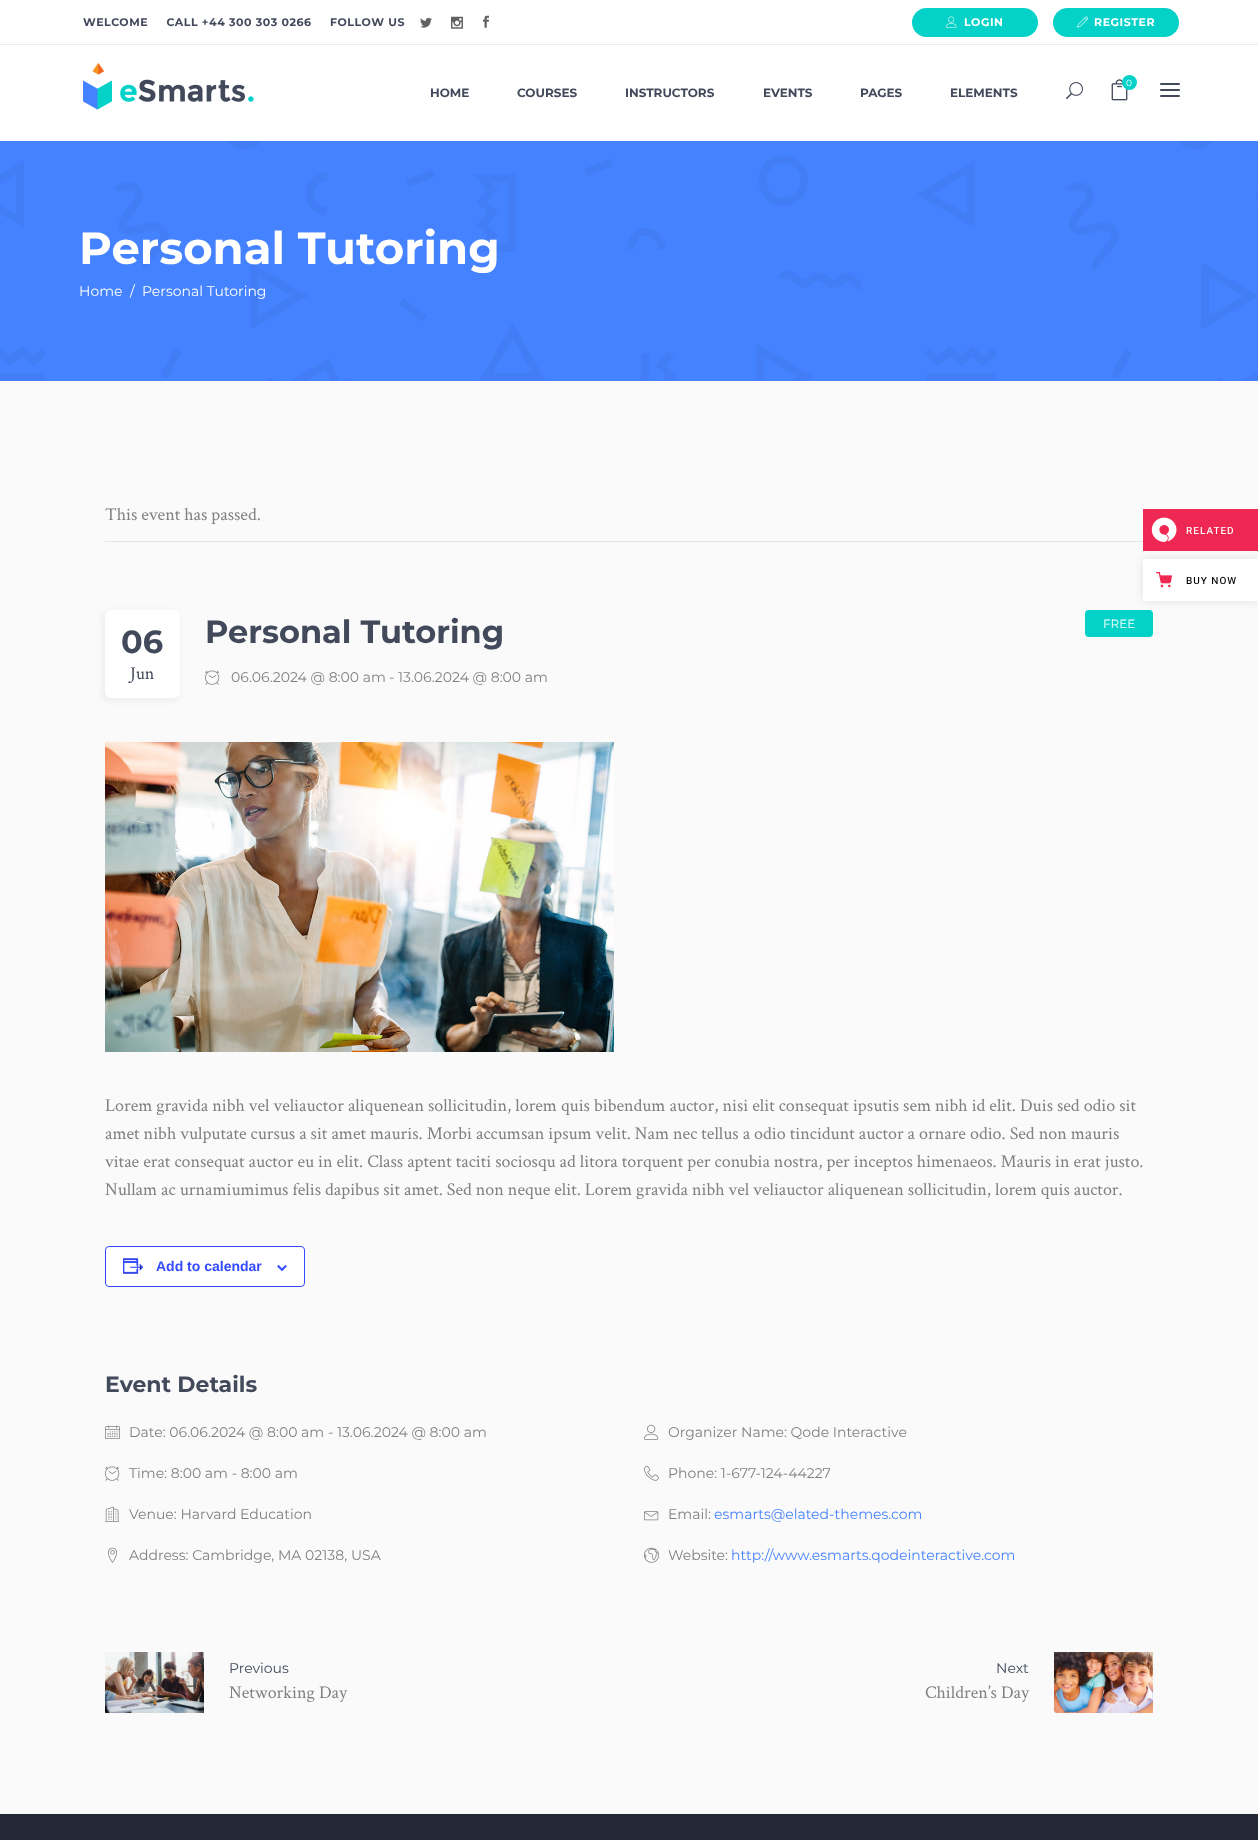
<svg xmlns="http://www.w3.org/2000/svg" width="1258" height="1840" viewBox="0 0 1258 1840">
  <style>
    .t1 { font: bold 11px Montserrat; letter-spacing: 0.55px; fill: #42495b; }
    .t2 { font: bold 11px Montserrat; letter-spacing: 0.55px; fill: #fff; }
    .t3 { font: bold 12px Montserrat; fill: #42495b; }
    .t4 { font: 9px Montserrat; fill: #fff; }
    .t5 { font: bold 45px Montserrat; fill: #fff; }
    .t6 { font: 14px Montserrat; fill: #fff; }
    .t7 { font: 18px Crimson Text; fill: #808080; }
    .t8 { font: bold 32px Montserrat; fill: #42495b; }
    .t9 { font: 18px Crimson Text; fill: #42495b; }
    .t10 { font: 12px Montserrat; fill: #fff; }
    .t11 { font: 14px Montserrat; fill: #808080; }
    .t12 { font: bold 14px Liberation Sans; fill: #334aff; }
    .t13 { font: bold 22px Montserrat; fill: #42495b; }
    .t14 { font: 14px Montserrat; fill: #4582ff; }
    .t15 { font: 14px Montserrat; fill: #42495b; }
    .t16 { font: 500 10px Heebo; letter-spacing: 1px; fill: #fff; }
    .t17 { font: 500 10px Heebo; letter-spacing: 1px; fill: #000; }
  </style>
  <rect width="100%" height="100%" fill="#fafafa"/>
  <rect x="0" y="0" width="1258" height="44" fill="#fff"/>
  <rect x="0" y="44" width="1258" height="1" fill="#ebebeb"/>
  <text x="83" y="26" class="t1" xml:space="preserve">WELCOME     CALL +44 300 303 0266</text>
  <text x="330" y="26" class="t1">FOLLOW US</text>
  <image x="420" y="17" width="12" height="11" href="images/1.png"/>
  <image x="451" y="16" width="12" height="13" href="images/2.png"/>
  <image x="483" y="15" width="6" height="13" href="images/3.png"/>
  <rect x="912" y="8" width="126" height="29" rx="14.5" fill="#04d2c8"/>
  <image x="946" y="16" width="11" height="12" href="images/4.png"/>
  <text x="964" y="26" class="t2">LOGIN</text>
  <rect x="1053" y="8" width="126" height="29" rx="14.5" fill="#04d2c8"/>
  <image x="1077" y="16" width="11" height="12" href="images/5.png"/>
  <text x="1094" y="26" class="t2">REGISTER</text>
  <rect x="0" y="45" width="1258" height="96" fill="#fff"/>
  <image x="83" y="63" width="171" height="47" href="images/6.png"/>
  <text x="430" y="97" class="t3">HOME</text>
  <text x="517" y="97" class="t3">COURSES</text>
  <text x="625" y="97" class="t3">INSTRUCTORS</text>
  <text x="763" y="97" class="t3">EVENTS</text>
  <text x="860" y="97" class="t3">PAGES</text>
  <text x="950" y="97" class="t3">ELEMENTS</text>
  <image x="1066" y="82" width="17" height="18" href="images/7.png"/>
  <image x="1111" y="79" width="17" height="22" href="images/8.png"/>
  <circle cx="1129.5" cy="82.5" r="7.5" fill="#04d2c8"/>
  <text x="1126" y="86" class="t4">0</text>
  <image x="1160" y="83" width="20" height="14" href="images/9.png"/>
  <image x="0" y="141" width="1258" height="240" href="images/10.png"/>
  <text x="79" y="264" class="t5">Personal Tutoring</text>
  <text x="79" y="296" class="t6">Home</text>
  <text x="130" y="296" class="t6">/</text>
  <text x="142" y="296" class="t6">Personal Tutoring</text>
  <rect x="105" y="541" width="1038" height="1" fill="#e4e4e4"/>
  <text x="105" y="520" class="t7">This event has passed.</text>
  <rect x="102" y="611" width="77" height="90" rx="7" fill="#0000000d" filter="blur(3px)"/>
  <rect x="105" y="610" width="75" height="88" rx="6" fill="#fff"/>
  <text x="121" y="653" class="t8">06</text>
  <text x="130" y="679" class="t9">Jun</text>
  <text x="205" y="643" class="t8">Personal Tutoring</text>
  <rect x="1085" y="610" width="68" height="27" rx="4" fill="#04d2c8"/>
  <text x="1103" y="628" class="t10">FREE</text>
  <image x="205" y="670" width="15" height="15" href="images/11.png"/>
  <text x="231" y="682" class="t11">06.06.2024 @ 8:00 am</text>
  <text x="389" y="682" class="t11">- 13.06.2024 @ 8:00 am</text>
  <image x="105" y="742" width="509" height="310" href="images/12.png"/>
  <text x="105" y="1111" class="t7">Lorem gravida nibh vel veliauctor aliquenean sollicitudin, lorem quis bibendum auctor, nisi elit consequat ipsutis sem nibh id elit. Duis sed odio sit</text>
  <text x="105" y="1139" class="t7">amet nibh vulputate cursus a sit amet mauris. Morbi accumsan ipsum velit. Nam nec tellus a odio tincidunt auctor a ornare odio. Sed non mauris</text>
  <text x="105" y="1167" class="t7">vitae erat consequat auctor eu in elit. Class aptent taciti sociosqu ad litora torquent per conubia nostra, per inceptos himenaeos. Mauris in erat justo.</text>
  <text x="105" y="1195" class="t7">Nullam ac urnamiumimus felis dapibus sit amet. Sed non neque elit. Lorem gravida nibh vel veliauctor aliquenean sollicitudin, lorem quis auctor.</text>
  <rect x="105.5" y="1246.5" width="199" height="40" rx="3.5" fill="#fff" stroke="#334aff"/>
  <image x="123" y="1258" width="21" height="16" href="images/13.png"/>
  <text x="156" y="1271" class="t12">Add to calendar</text>
  <image x="277" y="1265" width="10" height="6" href="images/14.png"/>
  <text x="105" y="1392" class="t13">Event Details</text>
  <image x="105" y="1425" width="15" height="14" href="images/15.png"/>
  <text x="129" y="1437" class="t11">Date: 06.06.2024 @ 8:00 am - 13.06.2024 @ 8:00 am</text>
  <image x="105" y="1466" width="15" height="15" href="images/11.png"/>
  <text x="129" y="1478" class="t11">Time: 8:00 am - 8:00 am</text>
  <image x="105" y="1506" width="15" height="16" href="images/16.png"/>
  <text x="129" y="1519" class="t11">Venue: Harvard Education</text>
  <image x="108" y="1547" width="9" height="16" href="images/17.png"/>
  <text x="129" y="1560" class="t11">Address: Cambridge, MA 02138, USA</text>
  <image x="644" y="1424" width="15" height="16" href="images/18.png"/>
  <text x="668" y="1437" class="t11">Organizer Name: Qode Interactive</text>
  <image x="644" y="1465" width="15" height="16" href="images/19.png"/>
  <text x="668" y="1478" class="t11">Phone: 1-677-124-44227</text>
  <image x="644" y="1511" width="15" height="10" href="images/20.png"/>
  <text x="668" y="1519" class="t11">Email:</text>
  <text x="714" y="1519" class="t14">esmarts@elated-themes.com</text>
  <image x="644" y="1547" width="15" height="16" href="images/21.png"/>
  <text x="668" y="1560" class="t11">Website:</text>
  <text x="731" y="1560" class="t14">http://www.esmarts.qodeinteractive.com</text>
  <image x="105" y="1652" width="99" height="61" href="images/22.png"/>
  <text x="229" y="1673" class="t15">Previous</text>
  <text x="229" y="1698" class="t7">Networking Day</text>
  <text x="996" y="1673" class="t15">Next</text>
  <text x="925" y="1698" class="t7">Children’s Day</text>
  <image x="1054" y="1652" width="99" height="61" href="images/23.png"/>
  <rect x="0" y="1814" width="1258" height="26" fill="#232936"/>
  <rect x="1143" y="509" width="115" height="42" fill="#ef2853"/>
  <image x="1151" y="517" width="26" height="25" href="images/24.png"/>
  <text x="1186" y="534" class="t16">RELATED</text>
  <rect x="1143" y="559" width="115" height="42" fill="#0000001a" filter="blur(5px)"/>
  <rect x="1143" y="559" width="115" height="42" fill="#fff"/>
  <image x="1156" y="572" width="16" height="16" href="images/25.png"/>
  <text x="1186" y="584" class="t17">BUY NOW</text>
</svg>
